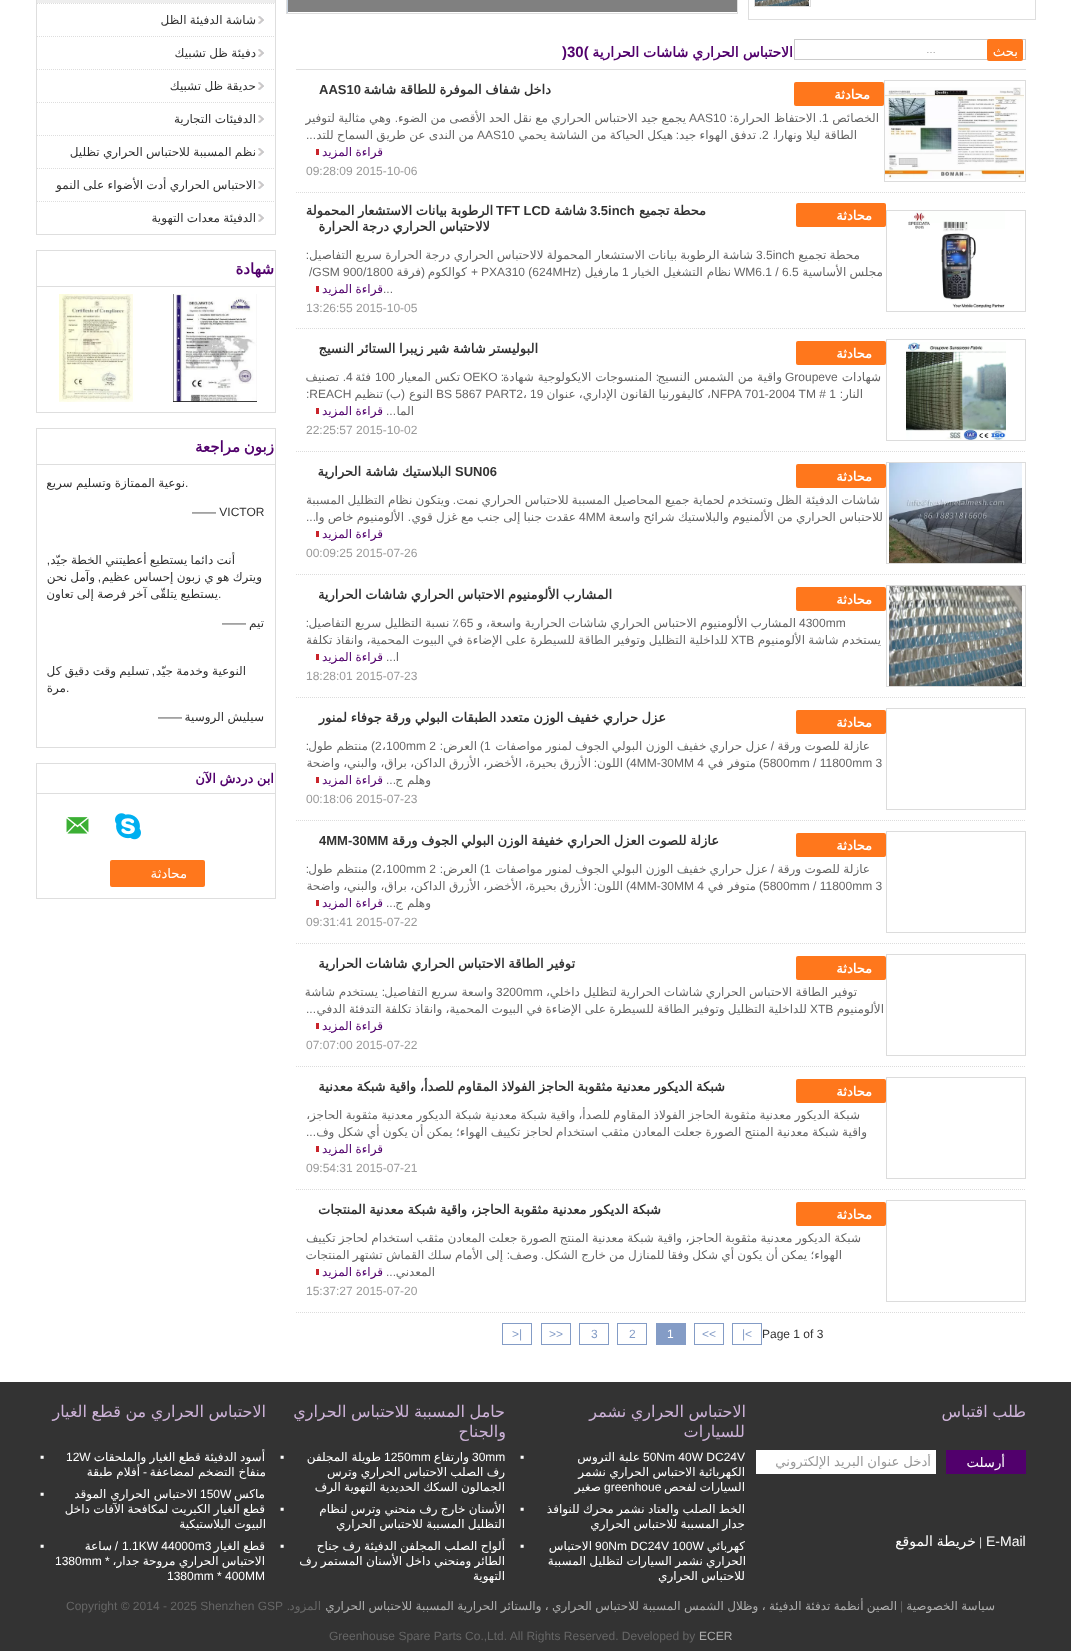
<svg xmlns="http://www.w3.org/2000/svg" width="1071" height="1651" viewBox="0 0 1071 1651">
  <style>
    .t1 { font: 13.25px DejaVu Sans; direction: rtl; fill: #fff; }
    .t2 { font: 10px Liberation Sans; direction: rtl; fill: #999; }
    .t3 { font: bold 14px DejaVu Sans; direction: rtl; fill: #51006c; }
    .t4 { font: bold 15px Liberation Sans; fill: #51006c; }
    .t5 { font: bold 13px DejaVu Sans; direction: rtl; fill: #fff; }
    .t6 { font: bold 13px DejaVu Sans; direction: rtl; fill: #333; }
    .t7 { font: bold 13px Liberation Sans; fill: #333; }
    .t8 { font: 12px DejaVu Sans; direction: rtl; fill: #666; }
    .t9 { font: 12px Liberation Sans; fill: #666; }
    .t10 { font: 12px Liberation Sans; direction: rtl; fill: #666; }
    .t11 { font: 12px DejaVu Sans; direction: rtl; fill: #51006c; }
    .t12 { font: 12px Liberation Sans; fill: #999; }
    .t13 { font: 12px DejaVu Sans; fill: #666; }
    .t14 { font: 12px Liberation Sans; fill: #333; }
    .t15 { font: 12px Liberation Sans; fill: #849cc6; }
    .t16 { font: 12px Liberation Sans; fill: #fff; }
    .t17 { font: 12px DejaVu Sans; direction: rtl; fill: #333; }
    .t18 { font: bold 15px DejaVu Sans; direction: rtl; fill: #51006c; }
    .t19 { font: 12px Liberation Sans; direction: rtl; fill: #333; }
    .t20 { font: bold 13px DejaVu Sans; direction: rtl; fill: #51006c; }
    .t21 { font: 16px DejaVu Sans; direction: rtl; fill: #cdb3d8; }
    .t22 { font: 13.25px DejaVu Sans; direction: rtl; fill: #999; }
    .t23 { font: 14px Liberation Sans; fill: #fff; }
    .t24 { font: 12px Liberation Sans; fill: #ddd; }
    .t25 { font: 14px DejaVu Sans; direction: rtl; fill: #fff; }
    .t26 { font: 12px DejaVu Sans; direction: rtl; fill: #fff; }
    .t27 { font: 12px Liberation Sans; direction: rtl; fill: #fff; }
    .t28 { font: 12px DejaVu Sans; direction: rtl; fill: #adadad; }
    .t29 { font: 12px Liberation Sans; fill: #adadad; }
  </style>
  <defs>
    <clipPath id="clip1"><rect x="287" y="0" width="450" height="13"/></clipPath>
    <clipPath id="clip2"><rect x="756" y="1454" width="180" height="15"/></clipPath>
  </defs>
  <rect width="100%" height="100%" fill="#fff"/>
  <rect x="748.5" y="-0.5" width="287" height="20" fill="none" stroke="#dedede"/>
  <rect x="754.5" y="-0.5" width="56" height="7" fill="none" stroke="#dedede"/>
  <image x="755" y="0" width="54" height="6" href="images/1.png"/>
  <rect x="286.5" y="-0.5" width="451" height="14" fill="none" stroke="#dedede"/>
  <g clip-path="url(#clip1)">
    <rect x="287.5" y="-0.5" width="451" height="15" fill="none" stroke="#c6d2e0"/>
  </g>
  <rect x="288" y="0" width="449" height="12" fill="#808080"/>
  <rect x="296" y="69" width="730" height="1" fill="#dedede"/>
  <rect x="794.5" y="39.5" width="231" height="20" fill="none" stroke="#ccc"/>
  <rect x="987" y="39" width="36" height="22" rx="2" fill="#ff771c"/>
  <text x="1018" y="56" class="t1">بحث</text>
  <text x="936" y="53" class="t2">…</text>
  <text x="793" y="57" word-spacing="-0.5" class="t3">الاحتباس الحراري شاشات الحرارية</text>
  <text x="562" y="57" class="t4">)30(</text>
  <path d="M296 192.5H1026" fill="none" stroke="#dcdcdc" stroke-dasharray="1 1"/>
  <rect x="884.5" y="80.5" width="141" height="101" fill="none" stroke="#dcdcdc"/>
  <image x="885" y="87" width="139" height="92" href="images/2.png"/>
  <rect x="794" y="82" width="90" height="24" rx="2" fill="#ff771c"/>
  <text x="870" y="99" class="t5">محادثة</text>
  <text x="551" y="94" word-spacing="-0.5" class="t6">داخل شفاف الموفرة للطاقة شاشة</text>
  <text x="319" y="94" class="t7">AAS10</text>
  <text x="879" y="122" class="t8">الخصائص</text>
  <text x="822" y="122" class="t9">1</text>
  <text x="822" y="122" class="t10">.</text>
  <text x="816" y="122" class="t8">الاحتفاظ الحرارة</text>
  <text x="733" y="122" class="t10">:</text>
  <text x="689" y="122" class="t9">AAS10</text>
  <text x="686" y="122" word-spacing="-0.5" class="t8">يجمع جيد الاحتباس الحراري مع نقل الحد الأقصى من الضوء</text>
  <text x="398" y="122" class="t10">.</text>
  <text x="391" y="122" word-spacing="-0.5" class="t8">وهي مثالية لتوفير</text>
  <text x="857" y="139" class="t8">الطاقة ليلا ونهارا</text>
  <text x="776" y="139" class="t10">.</text>
  <text x="762" y="139" class="t9">2</text>
  <text x="762" y="139" class="t10">.</text>
  <text x="756" y="139" word-spacing="-0.5" class="t8">تدفق الهواء جيد</text>
  <text x="679" y="139" class="t10">:</text>
  <text x="673" y="139" word-spacing="-0.5" class="t8">هيكل الحياكة من الشاشة يحمي</text>
  <text x="477" y="139" class="t9">AAS10</text>
  <text x="474" y="139" word-spacing="-0.5" class="t8">من الندى عن طريق السماح للتد</text>
  <text x="316" y="139" class="t10">...</text>
  <text x="383" y="156" word-spacing="-0.5" class="t11">قراءة المزيد</text>
  <rect x="316" y="149" width="3" height="6" fill="#c9242b"/>
  <text x="306" y="175" class="t12">09:28:09 2015-10-06</text>
  <path d="M296 328.5H1026" fill="none" stroke="#dcdcdc" stroke-dasharray="1 1"/>
  <rect x="886.5" y="210.5" width="139" height="101" fill="none" stroke="#dcdcdc"/>
  <image x="908" y="211" width="97" height="97" href="images/3.png"/>
  <rect x="796" y="203" width="90" height="24" rx="2" fill="#ff771c"/>
  <text x="872" y="220" class="t5">محادثة</text>
  <text x="706" y="215" word-spacing="-0.5" class="t6">محطة تجميع</text>
  <text x="590" y="215" class="t7">3.5inch</text>
  <text x="587" y="215" class="t6">شاشة</text>
  <text x="496" y="215" class="t7">TFT LCD</text>
  <text x="493" y="215" word-spacing="-0.5" class="t6">الرطوبة بيانات الاستشعار المحمولة</text>
  <text x="490" y="231" word-spacing="-0.5" class="t6">لالاحتباس الحراري درجة الحرارة</text>
  <text x="860" y="259" word-spacing="-0.5" class="t8">محطة تجميع</text>
  <text x="756" y="259" class="t9">3.5inch</text>
  <text x="753" y="259" word-spacing="-0.5" class="t8">شاشة الرطوبة بيانات الاستشعار المحمولة لالاحتباس الحراري درجة الحرارة سريع التفاصيل</text>
  <text x="309" y="259" class="t10">:</text>
  <text x="883" y="276" word-spacing="-0.5" class="t8">مجلس الأساسية</text>
  <text x="734" y="276" class="t9">WM6.1 / 6.5</text>
  <text x="731" y="276" class="t8">نظام التشغيل الخيار</text>
  <text x="622" y="276" class="t9">1</text>
  <text x="619" y="276" class="t8">مارفيل</text>
  <text x="481" y="276" class="t9">PXA310 (624MHz)</text>
  <text x="478" y="276" class="t10">+</text>
  <text x="467" y="276" class="t8">كوالكوم</text>
  <text x="425" y="276" class="t10">(</text>
  <text x="421" y="276" class="t8">فرقة</text>
  <text x="309" y="276" class="t9">/GSM 900/1800</text>
  <text x="383" y="293" class="t9">...</text>
  <text x="383" y="293" word-spacing="-0.5" class="t11">قراءة المزيد</text>
  <rect x="316" y="286" width="3" height="6" fill="#c9242b"/>
  <text x="306" y="312" class="t12">13:26:55 2015-10-05</text>
  <path d="M296 451.5H1026" fill="none" stroke="#dcdcdc" stroke-dasharray="1 1"/>
  <rect x="886.5" y="339.5" width="139" height="101" fill="none" stroke="#dcdcdc"/>
  <image x="906" y="342" width="100" height="98" href="images/4.png"/>
  <rect x="796" y="341" width="90" height="24" rx="2" fill="#ff771c"/>
  <text x="872" y="358" class="t5">محادثة</text>
  <text x="538" y="353" word-spacing="-0.5" class="t6">البوليستر شاشة شير زيبرا الستائر النسيج</text>
  <text x="881" y="381" class="t8">شهادات</text>
  <text x="785" y="381" class="t9">Groupeve</text>
  <text x="782" y="381" class="t8">واقية من الشمس النسيج</text>
  <text x="659" y="381" class="t10">:</text>
  <text x="652" y="381" class="t8">المنسوجات الايكولوجية شهادة</text>
  <text x="504" y="381" class="t10">:</text>
  <text x="463" y="381" class="t9">OEKO</text>
  <text x="460" y="381" class="t8">تكس المعيار</text>
  <text x="375" y="381" class="t9">100</text>
  <text x="371" y="381" class="t8">فئة</text>
  <text x="346" y="381" class="t9">4</text>
  <text x="346" y="381" class="t10">.</text>
  <text x="339" y="381" class="t8">تصنيف</text>
  <text x="863" y="398" class="t8">النار</text>
  <text x="843" y="398" class="t10">:</text>
  <text x="711" y="398" class="t9">NFPA 701-2004 TM # 1</text>
  <text x="711" y="398" word-spacing="-0.5" class="t8">، كاليفورنيا القانون الإداري، عنوان</text>
  <text x="530" y="398" class="t9">19</text>
  <text x="523" y="398" class="t13">،</text>
  <text x="436" y="398" class="t9">BS 5867 PART2</text>
  <text x="433" y="398" class="t8">النوع</text>
  <text x="405" y="398" class="t10">(</text>
  <text x="401" y="398" class="t8">ب</text>
  <text x="390" y="398" class="t10">)</text>
  <text x="383" y="398" class="t8">تنظيم</text>
  <text x="306" y="398" class="t9">:REACH</text>
  <text x="414" y="415" class="t8">الما</text>
  <text x="396" y="415" class="t10">...</text>
  <text x="383" y="415" word-spacing="-0.5" class="t11">قراءة المزيد</text>
  <rect x="316" y="408" width="3" height="6" fill="#c9242b"/>
  <text x="306" y="434" class="t12">22:25:57 2015-10-02</text>
  <path d="M296 574.5H1026" fill="none" stroke="#dcdcdc" stroke-dasharray="1 1"/>
  <rect x="886.5" y="462.5" width="139" height="101" fill="none" stroke="#dcdcdc"/>
  <image x="889" y="463" width="133" height="100" href="images/5.png"/>
  <rect x="796" y="464" width="90" height="24" rx="2" fill="#ff771c"/>
  <text x="872" y="481" class="t5">محادثة</text>
  <text x="455" y="476" class="t7">SUN06</text>
  <text x="451" y="476" class="t6">البلاستيك شاشة الحرارية</text>
  <text x="880" y="504" word-spacing="-0.5" class="t8">شاشات الدفيئة الظل وتستخدم لحماية جميع المحاصيل المسببة للاحتباس الحراري نمت</text>
  <text x="456" y="504" class="t10">.</text>
  <text x="450" y="504" word-spacing="-0.5" class="t8">ويتكون نظام التظليل المسببة</text>
  <text x="883" y="521" word-spacing="-0.5" class="t8">للاحتباس الحراري من الألمنيوم والبلاستيك شرائح واسعة</text>
  <text x="579" y="521" class="t9">4MM</text>
  <text x="576" y="521" word-spacing="-0.5" class="t8">عقدت جنبا إلى جنب مع غزل قوي</text>
  <text x="411" y="521" class="t10">.</text>
  <text x="404" y="521" word-spacing="-0.5" class="t8">الألومنيوم خاص وا</text>
  <text x="316" y="521" class="t10">...</text>
  <text x="383" y="538" word-spacing="-0.5" class="t11">قراءة المزيد</text>
  <rect x="316" y="531" width="3" height="6" fill="#c9242b"/>
  <text x="306" y="557" class="t12">00:09:25 2015-07-26</text>
  <path d="M296 697.5H1026" fill="none" stroke="#dcdcdc" stroke-dasharray="1 1"/>
  <rect x="886.5" y="585.5" width="139" height="101" fill="none" stroke="#dcdcdc"/>
  <image x="889" y="586" width="133" height="100" href="images/6.png"/>
  <rect x="796" y="587" width="90" height="24" rx="2" fill="#ff771c"/>
  <text x="872" y="604" class="t5">محادثة</text>
  <text x="612" y="599" word-spacing="-0.5" class="t6">المشارب الألومنيوم الاحتباس الحراري شاشات الحرارية</text>
  <text x="799" y="627" class="t9">4300mm</text>
  <text x="796" y="627" word-spacing="-0.5" class="t8">المشارب الألومنيوم الاحتباس الحراري شاشات الحرارية واسعة، و</text>
  <text x="460" y="627" class="t9">65</text>
  <text x="459" y="627" word-spacing="-0.5" class="t8">٪ نسبة التظليل سريع التفاصيل</text>
  <text x="309" y="627" class="t10">:</text>
  <text x="881" y="644" word-spacing="-0.5" class="t8">يستخدم شاشة الألومنيوم</text>
  <text x="731" y="644" class="t9">XTB</text>
  <text x="728" y="644" word-spacing="-0.5" class="t8">للداخلية التظليل وتوفير الطاقة للسيطرة على الإضاءة في البيوت المحمية، وانقاذ تكلفة</text>
  <text x="399" y="661" class="t8">ا</text>
  <text x="396" y="661" class="t10">...</text>
  <text x="383" y="661" word-spacing="-0.5" class="t11">قراءة المزيد</text>
  <rect x="316" y="654" width="3" height="6" fill="#c9242b"/>
  <text x="306" y="680" class="t12">18:28:01 2015-07-23</text>
  <path d="M296 820.5H1026" fill="none" stroke="#dcdcdc" stroke-dasharray="1 1"/>
  <rect x="886.5" y="708.5" width="139" height="101" fill="none" stroke="#dcdcdc"/>
  <rect x="796" y="710" width="90" height="24" rx="2" fill="#ff771c"/>
  <text x="872" y="727" class="t5">محادثة</text>
  <text x="666" y="722" word-spacing="-0.5" class="t6">عزل حراري خفيف الوزن متعدد الطبقات البولي ورقة جوفاء لمنور</text>
  <text x="870" y="750" word-spacing="-0.5" class="t8">عازلة للصوت ورقة</text>
  <text x="774" y="750" class="t10">/</text>
  <text x="768" y="750" word-spacing="-0.5" class="t8">عزل حراري خفيف الوزن البولي الجوف لمنور مواصفات</text>
  <text x="484" y="750" class="t9">1</text>
  <text x="484" y="750" class="t10">)</text>
  <text x="477" y="750" class="t8">العرض</text>
  <text x="443" y="750" class="t10">:</text>
  <text x="386" y="750" class="t9">100mm 2</text>
  <text x="382" y="750" class="t13">،</text>
  <text x="375" y="750" class="t9">2</text>
  <text x="375" y="750" class="t10">)</text>
  <text x="368" y="750" class="t8">منتظم طول</text>
  <text x="309" y="750" class="t10">:</text>
  <text x="763" y="767" class="t9">5800mm / 11800mm 3</text>
  <text x="763" y="767" class="t10">)</text>
  <text x="756" y="767" class="t8">متوفر في</text>
  <text x="630" y="767" class="t9">4MM-30MM 4</text>
  <text x="630" y="767" class="t10">)</text>
  <text x="623" y="767" class="t8">اللون</text>
  <text x="597" y="767" class="t10">:</text>
  <text x="591" y="767" word-spacing="-0.5" class="t8">الأزرق بحيرة، الأخضر، الأزرق الداكن، براق، والبني، واضحة</text>
  <text x="431" y="784" class="t8">وهلم ج</text>
  <text x="396" y="784" class="t10">...</text>
  <text x="383" y="784" word-spacing="-0.5" class="t11">قراءة المزيد</text>
  <rect x="316" y="777" width="3" height="6" fill="#c9242b"/>
  <text x="306" y="803" class="t12">00:18:06 2015-07-23</text>
  <path d="M296 943.5H1026" fill="none" stroke="#dcdcdc" stroke-dasharray="1 1"/>
  <rect x="886.5" y="831.5" width="139" height="101" fill="none" stroke="#dcdcdc"/>
  <rect x="796" y="833" width="90" height="24" rx="2" fill="#ff771c"/>
  <text x="872" y="850" class="t5">محادثة</text>
  <text x="719" y="845" word-spacing="-0.5" class="t6">عازلة للصوت العزل الحراري خفيفة الوزن البولي الجوف ورقة</text>
  <text x="319" y="845" class="t7">4MM-30MM</text>
  <text x="870" y="873" word-spacing="-0.5" class="t8">عازلة للصوت ورقة</text>
  <text x="774" y="873" class="t10">/</text>
  <text x="768" y="873" word-spacing="-0.5" class="t8">عزل حراري خفيف الوزن البولي الجوف لمنور مواصفات</text>
  <text x="484" y="873" class="t9">1</text>
  <text x="484" y="873" class="t10">)</text>
  <text x="477" y="873" class="t8">العرض</text>
  <text x="443" y="873" class="t10">:</text>
  <text x="386" y="873" class="t9">100mm 2</text>
  <text x="382" y="873" class="t13">،</text>
  <text x="375" y="873" class="t9">2</text>
  <text x="375" y="873" class="t10">)</text>
  <text x="368" y="873" class="t8">منتظم طول</text>
  <text x="309" y="873" class="t10">:</text>
  <text x="763" y="890" class="t9">5800mm / 11800mm 3</text>
  <text x="763" y="890" class="t10">)</text>
  <text x="756" y="890" class="t8">متوفر في</text>
  <text x="630" y="890" class="t9">4MM-30MM 4</text>
  <text x="630" y="890" class="t10">)</text>
  <text x="623" y="890" class="t8">اللون</text>
  <text x="597" y="890" class="t10">:</text>
  <text x="591" y="890" word-spacing="-0.5" class="t8">الأزرق بحيرة، الأخضر، الأزرق الداكن، براق، والبني، واضحة</text>
  <text x="431" y="907" class="t8">وهلم ج</text>
  <text x="396" y="907" class="t10">...</text>
  <text x="383" y="907" word-spacing="-0.5" class="t11">قراءة المزيد</text>
  <rect x="316" y="900" width="3" height="6" fill="#c9242b"/>
  <text x="306" y="926" class="t12">09:31:41 2015-07-22</text>
  <path d="M296 1066.5H1026" fill="none" stroke="#dcdcdc" stroke-dasharray="1 1"/>
  <rect x="886.5" y="954.5" width="139" height="101" fill="none" stroke="#dcdcdc"/>
  <rect x="796" y="956" width="90" height="24" rx="2" fill="#ff771c"/>
  <text x="872" y="973" class="t5">محادثة</text>
  <text x="575" y="968" word-spacing="-0.5" class="t6">توفير الطاقة الاحتباس الحراري شاشات الحرارية</text>
  <text x="857" y="996" word-spacing="-0.5" class="t8">توفير الطاقة الاحتباس الحراري شاشات الحرارية لتظليل داخلي،</text>
  <text x="496" y="996" class="t9">3200mm</text>
  <text x="493" y="996" class="t8">واسعة سريع التفاصيل</text>
  <text x="385" y="996" class="t10">:</text>
  <text x="378" y="996" class="t8">يستخدم شاشة</text>
  <text x="884" y="1013" class="t8">الألومنيوم</text>
  <text x="810" y="1013" class="t9">XTB</text>
  <text x="807" y="1013" word-spacing="-0.5" class="t8">للداخلية التظليل وتوفير الطاقة للسيطرة على الإضاءة في البيوت المحمية، وانقاذ تكلفة التدفئة الدفي</text>
  <text x="316" y="1013" class="t10">...</text>
  <text x="383" y="1030" word-spacing="-0.5" class="t11">قراءة المزيد</text>
  <rect x="316" y="1023" width="3" height="6" fill="#c9242b"/>
  <text x="306" y="1049" class="t12">07:07:00 2015-07-22</text>
  <path d="M296 1189.5H1026" fill="none" stroke="#dcdcdc" stroke-dasharray="1 1"/>
  <rect x="886.5" y="1077.5" width="139" height="101" fill="none" stroke="#dcdcdc"/>
  <rect x="796" y="1079" width="90" height="24" rx="2" fill="#ff771c"/>
  <text x="872" y="1096" class="t5">محادثة</text>
  <text x="725" y="1091" word-spacing="-0.5" class="t6">شبكة الديكور معدنية مثقوبة الحاجز الفولاذ المقاوم للصدأ، واقية شبكة معدنية</text>
  <text x="860" y="1119" word-spacing="-0.5" class="t8">شبكة الديكور معدنية مثقوبة الحاجز الفولاذ المقاوم للصدأ، واقية شبكة معدنية شبكة الديكور معدنية مثقوبة الحاجز،</text>
  <text x="867" y="1136" word-spacing="-0.5" class="t8">واقية شبكة معدنية المنتج الصورة جعلت المعادن مثقب استخدام لحاجز تكييف الهواء؛ يمكن أن يكون أي شكل وف</text>
  <text x="316" y="1136" class="t10">...</text>
  <text x="383" y="1153" word-spacing="-0.5" class="t11">قراءة المزيد</text>
  <rect x="316" y="1146" width="3" height="6" fill="#c9242b"/>
  <text x="306" y="1172" class="t12">09:54:31 2015-07-21</text>
  <path d="M296 1312.5H1026" fill="none" stroke="#dcdcdc" stroke-dasharray="1 1"/>
  <rect x="886.5" y="1200.5" width="139" height="101" fill="none" stroke="#dcdcdc"/>
  <rect x="796" y="1202" width="90" height="24" rx="2" fill="#ff771c"/>
  <text x="872" y="1219" class="t5">محادثة</text>
  <text x="661" y="1214" word-spacing="-0.5" class="t6">شبكة الديكور معدنية مثقوبة الحاجز، واقية شبكة معدنية المنتجات</text>
  <text x="861" y="1242" word-spacing="-0.5" class="t8">شبكة الديكور معدنية مثقوبة الحاجز، واقية شبكة معدنية المنتج الصورة جعلت المعادن مثقب استخدام لحاجز تكييف</text>
  <text x="842" y="1259" word-spacing="-0.5" class="t8">الهواء؛ يمكن أن يكون أي شكل وفقا للمنازل من خارج الشكل</text>
  <text x="544" y="1259" class="t10">.</text>
  <text x="538" y="1259" class="t8">وصف</text>
  <text x="510" y="1259" class="t10">:</text>
  <text x="503" y="1259" word-spacing="-0.5" class="t8">إلى الأمام سلك القماش تشتهر المنتجات</text>
  <text x="435" y="1276" class="t8">المعدني</text>
  <text x="396" y="1276" class="t10">...</text>
  <text x="383" y="1276" word-spacing="-0.5" class="t11">قراءة المزيد</text>
  <rect x="316" y="1269" width="3" height="6" fill="#c9242b"/>
  <text x="306" y="1295" class="t12">15:37:27 2015-07-20</text>
  <text x="762" y="1338" class="t14">Page 1 of 3</text>
  <rect x="732.5" y="1323.5" width="29" height="21" fill="none" stroke="#849cc6"/>
  <text x="742" y="1338" class="t15">|&lt;</text>
  <rect x="694.5" y="1323.5" width="29" height="21" fill="none" stroke="#849cc6"/>
  <text x="702" y="1338" class="t15">&lt;&lt;</text>
  <rect x="656" y="1323" width="30" height="22" fill="#849cc6"/>
  <text x="667" y="1338" class="t16">1</text>
  <rect x="617.5" y="1323.5" width="29" height="21" fill="none" stroke="#849cc6"/>
  <text x="629" y="1338" class="t15">2</text>
  <rect x="579.5" y="1323.5" width="29" height="21" fill="none" stroke="#849cc6"/>
  <text x="591" y="1338" class="t15">3</text>
  <rect x="541.5" y="1323.5" width="29" height="21" fill="none" stroke="#849cc6"/>
  <text x="549" y="1338" class="t15">&gt;&gt;</text>
  <rect x="502.5" y="1323.5" width="29" height="21" fill="none" stroke="#849cc6"/>
  <text x="512" y="1338" class="t15">&gt;|</text>
  <rect x="36.5" y="-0.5" width="239" height="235" fill="none" stroke="#dedede"/>
  <rect x="37" y="0" width="238" height="3" fill="#eee"/>
  <path d="M37 3.5H275" fill="none" stroke="#dedede" stroke-dasharray="1 1"/>
  <image x="258" y="16" width="6" height="8" href="images/7.png"/>
  <text x="256" y="24" word-spacing="-0.5" class="t17">شاشة الدفيئة الظل</text>
  <path d="M37 36.5H275" fill="none" stroke="#dedede" stroke-dasharray="1 1"/>
  <image x="258" y="49" width="6" height="8" href="images/7.png"/>
  <text x="256" y="57" word-spacing="-0.5" class="t17">دفيئة ظل تشبيك</text>
  <path d="M37 69.5H275" fill="none" stroke="#dedede" stroke-dasharray="1 1"/>
  <image x="258" y="82" width="6" height="8" href="images/7.png"/>
  <text x="256" y="90" word-spacing="-0.5" class="t17">حديقة ظل تشبيك</text>
  <path d="M37 102.5H275" fill="none" stroke="#dedede" stroke-dasharray="1 1"/>
  <image x="258" y="115" width="6" height="8" href="images/7.png"/>
  <text x="256" y="123" word-spacing="-0.5" class="t17">الدفيئات التجارية</text>
  <path d="M37 135.5H275" fill="none" stroke="#dedede" stroke-dasharray="1 1"/>
  <image x="258" y="148" width="6" height="8" href="images/7.png"/>
  <text x="256" y="156" word-spacing="-0.5" class="t17">نظم المسببة للاحتباس الحراري تظليل</text>
  <path d="M37 168.5H275" fill="none" stroke="#dedede" stroke-dasharray="1 1"/>
  <image x="258" y="181" width="6" height="8" href="images/7.png"/>
  <text x="256" y="189" word-spacing="-0.5" class="t17">الاحتباس الحراري أدت الأضواء على النمو</text>
  <path d="M37 201.5H275" fill="none" stroke="#dedede" stroke-dasharray="1 1"/>
  <image x="258" y="214" width="6" height="8" href="images/7.png"/>
  <text x="256" y="222" word-spacing="-0.5" class="t17">الدفيئة معدات التهوية</text>
  <rect x="36.5" y="250.5" width="239" height="162" fill="none" stroke="#dedede"/>
  <rect x="37" y="286" width="238" height="1" fill="#dedede"/>
  <text x="274" y="274" class="t18">شهادة</text>
  <image x="173" y="294" width="84" height="108" href="images/8.png"/>
  <image x="59" y="294" width="74" height="108" href="images/9.png"/>
  <rect x="36.5" y="428.5" width="239" height="319" fill="none" stroke="#dedede"/>
  <rect x="37" y="464" width="238" height="1" fill="#dedede"/>
  <text x="274" y="452" word-spacing="-1" class="t18">زبون مراجعة</text>
  <text x="185" y="487" class="t14">.</text>
  <text x="185" y="487" word-spacing="-0.5" class="t17">نوعية الممتازة وتسليم سريع</text>
  <text x="192" y="516" class="t14">—— VICTOR</text>
  <text x="235" y="564" word-spacing="-0.5" class="t17">أنت دائما يستطيع أعطيتني الخطة جيّد</text>
  <text x="50" y="564" class="t19">,</text>
  <text x="262" y="581" word-spacing="-0.5" class="t17">ويترك هو ي زبون إحساس عظيم</text>
  <text x="101" y="581" class="t19">,</text>
  <text x="95" y="581" word-spacing="-0.5" class="t17">وآمل نحن</text>
  <text x="218" y="598" class="t14">.</text>
  <text x="218" y="598" word-spacing="-0.5" class="t17">يستطيع يتلقّى آخر فرصة إلى تعاون</text>
  <text x="264" y="627" class="t17">تيم</text>
  <text x="222" y="627" class="t14">——</text>
  <text x="246" y="675" word-spacing="-0.5" class="t17">النوعية وخدمة جيّد</text>
  <text x="155" y="675" class="t19">,</text>
  <text x="149" y="675" word-spacing="-0.5" class="t17">تسليم وقت دقيق كل</text>
  <text x="66" y="692" class="t14">.</text>
  <text x="66" y="692" class="t17">مرة</text>
  <text x="264" y="721" word-spacing="-0.5" class="t17">سيليش الروسية</text>
  <text x="158" y="721" class="t14">——</text>
  <rect x="36.5" y="763.5" width="239" height="135" fill="none" stroke="#dedede"/>
  <rect x="37" y="793" width="238" height="1" fill="#dedede"/>
  <text x="274" y="783" word-spacing="-0.5" class="t20">ابن دردش الآن</text>
  <image x="115" y="813" width="26" height="27" href="images/10.png"/>
  <image x="66" y="817" width="23" height="17" href="images/11.png"/>
  <rect x="110" y="860" width="95" height="27" rx="2" fill="#ff771c"/>
  <text x="187" y="878" class="t1">محادثة</text>
  <rect x="0" y="1382" width="1071" height="269" fill="#333"/>
  <text x="1026" y="1417" word-spacing="-0.5" class="t21">طلب اقتباس</text>
  <rect x="946" y="1450" width="80" height="24" fill="#51006c"/>
  <text x="1005" y="1467" class="t1">أرسلت</text>
  <rect x="756" y="1450" width="180" height="24" fill="#fff"/>
  <g clip-path="url(#clip2)">
    <text x="931" y="1466" word-spacing="-0.5" class="t22">أدخل عنوان البريد الإلكتروني</text>
  </g>
  <text x="986" y="1546" class="t23">E-Mail</text>
  <text x="979" y="1546" class="t24">|</text>
  <text x="976" y="1546" word-spacing="-0.5" class="t25">خريطة الموقع</text>
  <text x="746" y="1417" word-spacing="-0.5" class="t21">الاحتباس الحراري نشمر</text>
  <text x="745" y="1437" class="t21">للسيارات</text>
  <text x="643" y="1461" class="t16">50Nm 40W DC24V</text>
  <text x="640" y="1461" class="t26">علبة التروس</text>
  <text x="520" y="1461" class="t16">▪</text>
  <text x="745" y="1476" word-spacing="-0.5" class="t26">الكهربائية الاحتباس الحراري نشمر</text>
  <text x="745" y="1491" word-spacing="-0.5" class="t26">السيارات لفحص</text>
  <text x="604" y="1491" class="t16">greenhoue</text>
  <text x="601" y="1491" class="t26">صغير</text>
  <text x="745" y="1513" word-spacing="-0.5" class="t26">الخط الصلب والعتاد نشمر محرك للنوافذ</text>
  <text x="520" y="1513" class="t16">▪</text>
  <text x="745" y="1528" word-spacing="-0.5" class="t26">جدار المسببة للاحتباس الحراري</text>
  <text x="745" y="1550" class="t26">كهربائي</text>
  <text x="595" y="1550" class="t16">90Nm DC24V 100W</text>
  <text x="592" y="1550" class="t26">الاحتباس</text>
  <text x="520" y="1550" class="t16">▪</text>
  <text x="746" y="1565" word-spacing="-0.5" class="t26">الحراري نشمر السيارات لتظليل المسببة</text>
  <text x="745" y="1580" word-spacing="-0.5" class="t26">للاحتباس الحراري</text>
  <text x="505" y="1417" word-spacing="-0.5" class="t21">حامل المسببة للاحتباس الحراري</text>
  <text x="506" y="1437" class="t21">والجناح</text>
  <text x="472" y="1461" class="t16">30mm</text>
  <text x="469" y="1461" class="t26">وارتفاع</text>
  <text x="384" y="1461" class="t16">1250mm</text>
  <text x="381" y="1461" class="t26">طويلة المجلفن</text>
  <text x="280" y="1461" class="t16">▪</text>
  <text x="505" y="1476" word-spacing="-0.5" class="t26">رف الصلب الاحتباس الحراري وترس</text>
  <text x="505" y="1491" word-spacing="-0.5" class="t26">الجمالون السكك الحديدية التهوية الرف</text>
  <text x="505" y="1513" word-spacing="-0.5" class="t26">الأسنان خارج رف منحني وترس لنظام</text>
  <text x="280" y="1513" class="t16">▪</text>
  <text x="505" y="1528" word-spacing="-0.5" class="t26">التظليل المسببة للاحتباس الحراري</text>
  <text x="505" y="1550" word-spacing="-0.5" class="t26">ألواح الصلب المجلفن الدفيئة رف جناح</text>
  <text x="280" y="1550" class="t16">▪</text>
  <text x="505" y="1565" word-spacing="-0.5" class="t26">الطائر ومنحني داخل الأسنان المستمر رف</text>
  <text x="505" y="1580" class="t26">التهوية</text>
  <text x="266" y="1417" word-spacing="-0.5" class="t21">الاحتباس الحراري من قطع الغيار</text>
  <text x="265" y="1461" word-spacing="-0.5" class="t26">أسود الدفيئة قطع الغيار والملحقات</text>
  <text x="66" y="1461" class="t16">12W</text>
  <text x="40" y="1461" class="t16">▪</text>
  <text x="266" y="1476" class="t26">منفاخ التضخم لمضاعفة</text>
  <text x="147" y="1476" class="t27">-</text>
  <text x="140" y="1476" class="t26">أفلام طبقة</text>
  <text x="265" y="1498" class="t26">ماكس</text>
  <text x="200" y="1498" class="t16">150W</text>
  <text x="197" y="1498" class="t26">الاحتباس الحراري الموقد</text>
  <text x="40" y="1498" class="t16">▪</text>
  <text x="265" y="1513" word-spacing="-0.5" class="t26">قطع الغيار الكبريت لمكافحة الآفات داخل</text>
  <text x="266" y="1528" word-spacing="-0.5" class="t26">البيوت البلاستيكية</text>
  <text x="265" y="1550" word-spacing="-0.5" class="t26">قطع الغيار</text>
  <text x="122" y="1550" class="t16">1.1KW 44000m3</text>
  <text x="118" y="1550" class="t27">/</text>
  <text x="112" y="1550" class="t26">ساعة</text>
  <text x="40" y="1550" class="t16">▪</text>
  <text x="265" y="1565" word-spacing="-0.5" class="t26">الاحتباس الحراري مروحة جدار،</text>
  <text x="55" y="1565" class="t16">1380mm *</text>
  <text x="167" y="1580" class="t16">1380mm * 400MM</text>
  <text x="995" y="1610" word-spacing="-0.5" class="t28">سياسة الخصوصية</text>
  <text x="900" y="1610" class="t9">|</text>
  <text x="897" y="1610" word-spacing="-0.5" class="t28">الصين أنظمة تدفئة الدفيئة ، وظلال الشمس المسببة للاحتباس الحراري ، والستائر الحرارية المسببة للاحتباس الحراري</text>
  <text x="321" y="1610" class="t8">المزود</text>
  <text x="290" y="1610" class="t10">.</text>
  <text x="66" y="1610" class="t9">Copyright © 2014 - 2025 Shenzhen GSP</text>
  <text x="699" y="1640" class="t29">ECER</text>
  <text x="329" y="1640" class="t9">Greenhouse Spare Parts Co.,Ltd. All Rights Reserved. Developed by</text>
</svg>
